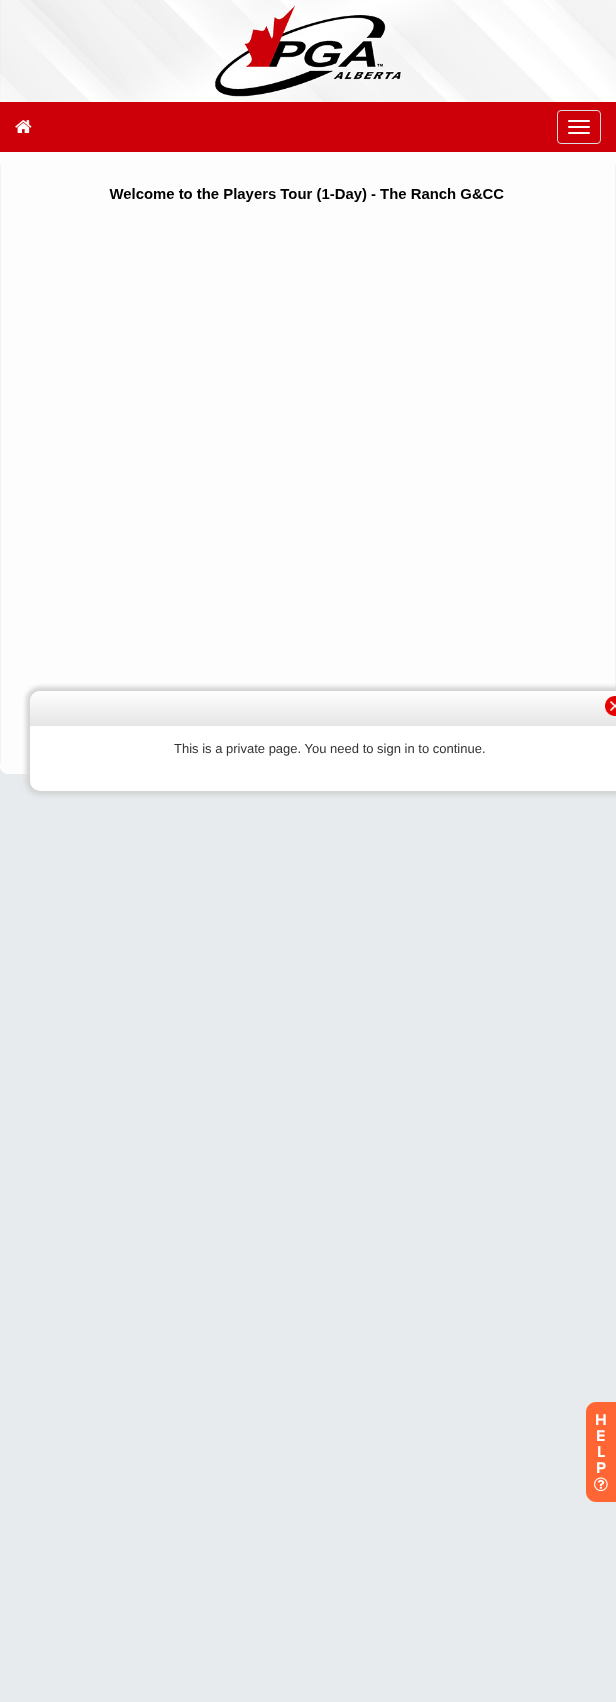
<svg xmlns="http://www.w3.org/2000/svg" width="616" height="1702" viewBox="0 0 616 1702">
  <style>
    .t1 { font: 13px Liberation Sans; fill: #333; }
    .t2 { font: bold 16px Proxima Nova; fill: #fefefe; }
  </style>
  <defs>
    <linearGradient id="g1" gradientUnits="userSpaceOnUse" x1="330" y1="691" x2="330" y2="726"><stop offset="0" stop-color="#fefefe"/><stop offset="1" stop-color="#e5e5e5"/></linearGradient>
  </defs>
  <rect width="100%" height="100%" fill="#e7ebee"/>
  <path d="M0 0H616V766C616 770.5 612.5 774 608 774H8C3.5 774 0 770.5 0 766Z" fill="#fdfdfd"/>
  <image x="0" y="0" width="616" height="102" href="images/1.png"/>
  <rect x="0" y="102" width="616" height="50" fill="#cd0009"/>
  <image x="15" y="120" width="17" height="13" href="images/2.png"/>
  <rect x="557.5" y="110.5" width="43" height="33" rx="3.5" fill="none" stroke="#ddd"/>
  <rect x="568" y="120" width="22" height="2" rx="1" fill="#fefefe"/>
  <rect x="568" y="126" width="22" height="2" rx="1" fill="#fefefe"/>
  <rect x="568" y="132" width="22" height="2" rx="1" fill="#fefefe"/>
  <rect x="615" y="164" width="1" height="527" fill="#f3f3f3"/>
  <rect x="0" y="164" width="1" height="600" fill="#f3f3f3"/>
  <image x="109" y="188" width="395" height="14" href="images/3.png"/>
  <rect x="26" y="687" width="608" height="108" rx="14" fill="#d3d3d3" filter="blur(2px)"/>
  <rect x="30" y="691" width="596" height="100" rx="10" fill="#fff"/>
  <path d="M40 691H616C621.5 691 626 695.5 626 701V726H30V701C30 695.5 34.5 691 40 691Z" fill="url(#g1)"/>
  <image x="605" y="696" width="11" height="20" href="images/4.png"/>
  <text x="174" y="753" class="t1">This is a private page. You need to sign in to continue.</text>
  <path d="M596 1402H616V1502H596C590.5 1502 586 1497.5 586 1492V1412C586 1406.5 590.5 1402 596 1402Z" fill="#f63"/>
  <text x="595" y="1425" class="t2">H</text>
  <text x="596" y="1441" class="t2">E</text>
  <text x="597" y="1457" class="t2">L</text>
  <text x="596" y="1473" class="t2">P</text>
  <image x="594" y="1477" width="14" height="15" href="images/5.png"/>
</svg>
